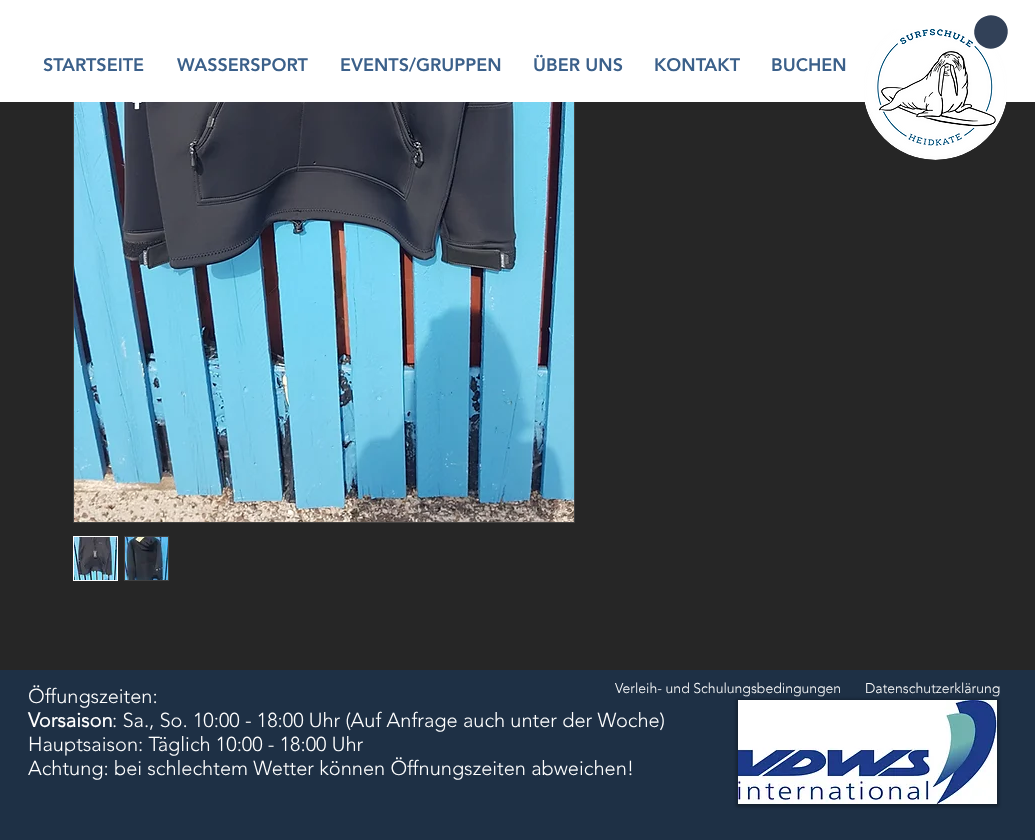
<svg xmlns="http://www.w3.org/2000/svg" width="1035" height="840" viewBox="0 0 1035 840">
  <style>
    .t1 { font: 900 18px 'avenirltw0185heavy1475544'; fill: #3b608a; }
    .t2 { font: 300 20px 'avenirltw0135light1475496'; fill: #fff; }
    .t3 { font: bold 20px 'avenirltw0135light1475496'; fill: #fff; }
    .t4 { font: 300 14px 'avenirltw0135light1475496'; fill: #fff; }
  </style>
  <rect width="100%" height="100%" fill="#262626"/>
  <rect x="73.5" y="-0.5" width="501" height="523" fill="none" stroke="#414141"/>
  <image x="74" y="102" width="500" height="420" href="images/1.png"/>
  <rect x="73.5" y="536.5" width="44" height="44" fill="none" stroke="#fff"/>
  <image x="74" y="537" width="43" height="43" href="images/2.png"/>
  <rect x="124" y="536" width="45" height="45" fill="#414141"/>
  <image x="125" y="537" width="43" height="43" href="images/3.png"/>
  <rect x="0" y="0" width="1035" height="102" fill="#fff"/>
  <image x="864" y="29" width="143" height="131" href="images/4.png"/>
  <path d="M996 16C1004.5 18.5 1010 27.5 1007 36.5C1004.5 45.5 995 50.5 986 48C977.5 45 972 36 975 27C977.5 18.5 987 13 996 16Z" fill="#324158"/>
  <text x="43" y="71" class="t1">STARTSEITE</text>
  <text x="177" y="71" class="t1">WASSERSPORT</text>
  <text x="340" y="71" class="t1">EVENTS/GRUPPEN</text>
  <text x="533" y="71" class="t1">ÜBER UNS</text>
  <text x="654" y="71" class="t1">KONTAKT</text>
  <text x="771" y="71" class="t1">BUCHEN</text>
  <rect x="0" y="670" width="1035" height="170" fill="#1e3045"/>
  <text x="28" y="703" class="t2">Öffungszeiten:</text>
  <text x="28" y="727" class="t3">Vorsaison</text>
  <text x="112" y="727" class="t2">: Sa., So. 10:00 - 18:00 Uhr (Auf Anfrage auch unter der Woche)</text>
  <text x="28" y="751" class="t2">Hauptsaison: Täglich 10:00 - 18:00 Uhr</text>
  <text x="28" y="775" class="t2">Achtung: bei schlechtem Wetter können Öffnungszeiten abweichen!</text>
  <rect x="736" y="699" width="263" height="108" fill="#0000004a" filter="blur(1.5px)"/>
  <text x="615" y="693" class="t4">Verleih- und Schulungsbedingungen</text>
  <text x="865" y="693" class="t4">Datenschutzerklärung</text>
  <image x="738" y="700" width="259" height="104" href="images/5.png"/>
</svg>
